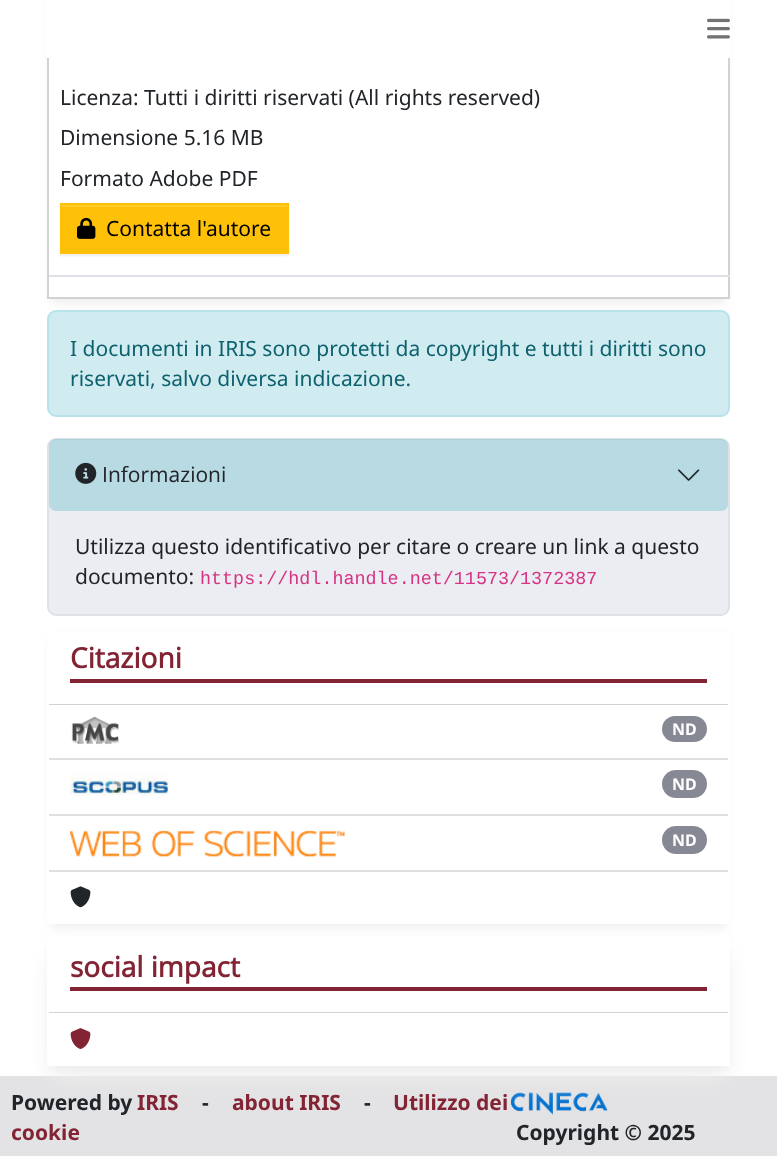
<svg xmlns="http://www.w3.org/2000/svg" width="777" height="1156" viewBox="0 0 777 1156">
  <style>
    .t1 { font: 21px Noto Sans; fill: #212529; }
    .t2 { font: 21px Noto Sans; fill: #000; }
    .t3 { font: 21px Noto Sans; fill: #0e616e; }
    .t4 { font: 21px Open Sans; fill: #212529; }
    .t5 { font: 18.4px Liberation Mono; fill: #d63384; }
    .t6 { font: bold 28px Open Sans; fill: #822433; }
    .t7 { font: bold 16px Noto Sans; fill: #fff; }
    .t8 { font: bold 21px Noto Sans; fill: #212529; }
    .t9 { font: bold 21px Noto Sans; fill: #822433; }
  </style>
  <rect width="100%" height="100%" fill="#fff"/>
  <rect x="51" y="-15" width="675" height="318" fill="#eee" filter="blur(5px)"/>
  <rect x="49" y="58" width="679" height="239" fill="#fff"/>
  <rect x="48" y="-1" width="681" height="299" fill="none" stroke="#d2d2d2" stroke-width="2"/>
  <rect x="46" y="0" width="685" height="58" fill="#fff"/>
  <image x="707" y="18" width="23" height="21" href="images/1.png"/>
  <rect x="49" y="275" width="681" height="2" fill="#dee2e6"/>
  <text x="60" y="105" class="t1">Licenza: Tutti i diritti riservati (All rights reserved)</text>
  <text x="60" y="145" class="t1">Dimensione 5.16 MB</text>
  <text x="60" y="186" class="t1">Formato Adobe PDF</text>
  <rect x="60" y="205" width="229" height="51" fill="#00000012" filter="blur(1px)"/>
  <rect x="62" y="207" width="225" height="45" fill="#ffc107"/>
  <rect x="61" y="205" width="226" height="2" fill="#ffca2c"/>
  <rect x="61" y="204" width="227" height="49" fill="none" stroke="#ffc107" stroke-width="2"/>
  <image x="77" y="217" width="19" height="22" href="images/2.png"/>
  <text x="106" y="236" class="t2">Contatta l'autore</text>
  <rect x="48" y="311" width="681" height="105" rx="8" fill="#d1ecf1" stroke="#b9e3ea" stroke-width="2"/>
  <text x="70" y="356" class="t3">I documenti in IRIS sono protetti da copyright e tutti i diritti sono</text>
  <text x="70" y="386" class="t3">riservati, salvo diversa indicazione.</text>
  <rect x="48" y="439" width="681" height="176" rx="8" fill="#ecedf2" stroke="#dee2e6" stroke-width="2"/>
  <rect x="49" y="439" width="679" height="72" rx="7" fill="#17a2b840"/>
  <image x="75" y="462" width="22" height="22" href="images/3.png"/>
  <text x="102" y="482" class="t4">Informazioni</text>
  <image x="678" y="469" width="22" height="12" href="images/4.png"/>
  <text x="75" y="554" class="t1">Utilizza questo identificativo per citare o creare un link a questo</text>
  <text x="75" y="584" class="t1">documento:</text>
  <text x="200" y="584" class="t5">https://hdl.handle.net/11573/1372387</text>
  <rect x="51" y="637" width="675" height="291" fill="#eee" filter="blur(5px)"/>
  <rect x="47" y="632" width="683" height="292" fill="#fff"/>
  <rect x="49" y="704" width="679" height="1" fill="#d2d2d2"/>
  <rect x="70" y="679" width="637" height="4" fill="#822433"/>
  <text x="70" y="668" class="t6">Citazioni</text>
  <rect x="49" y="758" width="679" height="2" fill="#dfdfdf"/>
  <image x="71" y="716" width="48" height="29" href="images/5.png"/>
  <rect x="662" y="716" width="45" height="26" rx="13" fill="#868894"/>
  <text x="672" y="735" class="t7">ND</text>
  <rect x="49" y="814" width="679" height="2" fill="#dfdfdf"/>
  <image x="70" y="772" width="98" height="24" href="images/6.png"/>
  <rect x="662" y="770" width="45" height="28" rx="14" fill="#868894"/>
  <text x="672" y="790" class="t7">ND</text>
  <rect x="49" y="870" width="679" height="2" fill="#dfdfdf"/>
  <image x="70" y="830" width="275" height="27" href="images/7.png"/>
  <rect x="662" y="826" width="45" height="28" rx="14" fill="#868894"/>
  <text x="672" y="846" class="t7">ND</text>
  <image x="70" y="886" width="21" height="22" href="images/8.png"/>
  <rect x="0" y="1076" width="777" height="80" fill="#e3e3e5"/>
  <rect x="51" y="945" width="675" height="124" fill="#eee" filter="blur(5px)"/>
  <image x="511" y="1092" width="97" height="23" href="images/10.png"/>
  <rect x="53" y="957" width="672" height="121" fill="#eee" filter="blur(13px)"/>
  <rect x="47" y="937" width="683" height="129" fill="#fff"/>
  <rect x="49" y="1012" width="679" height="1" fill="#d2d2d2"/>
  <rect x="70" y="987" width="637" height="4" fill="#822433"/>
  <text x="70" y="977" class="t6">social impact</text>
  <image x="70" y="1028" width="21" height="21" href="images/9.png"/>
  <text x="11" y="1110" class="t8">Powered by</text>
  <text x="137" y="1110" class="t9">IRIS</text>
  <text x="202" y="1110" class="t8">-</text>
  <text x="232" y="1110" class="t9">about IRIS</text>
  <text x="364" y="1110" class="t8">-</text>
  <text x="393" y="1110" class="t9">Utilizzo dei</text>
  <text x="11" y="1140" class="t9">cookie</text>
  <text x="516" y="1140" class="t8">Copyright © 2025</text>
</svg>
